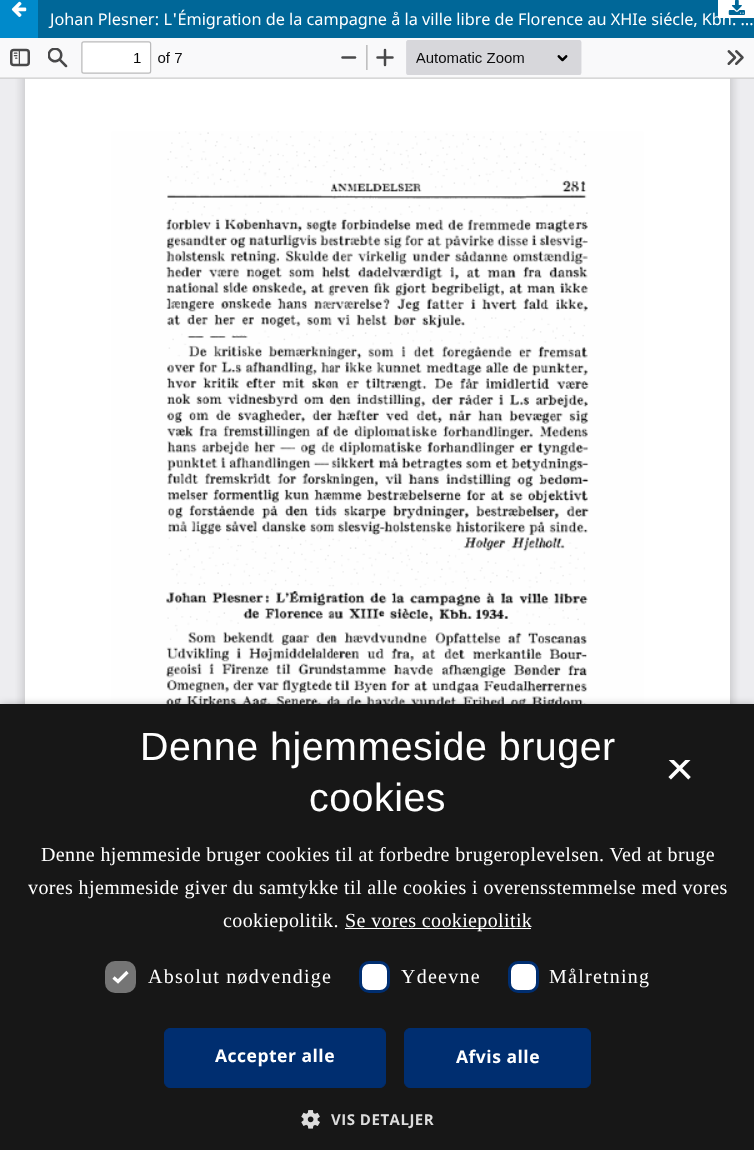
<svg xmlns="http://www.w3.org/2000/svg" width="754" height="1150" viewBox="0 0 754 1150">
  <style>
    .t1 { font: 16.25px Noto Sans; fill: #fff; }
    .t2 { font: 39.4px Liberation Sans; letter-spacing: 0.5px; fill: #fff; }
    .t3 { font: 50px Liberation Sans; fill: #fff; }
    .t4 { font: 20px Liberation Serif; letter-spacing: 0.38px; fill: #fff; }
    .t5 { font: 20px Liberation Serif; letter-spacing: 1.25px; fill: #fff; }
    .t6 { font: bold 17.5px Open Sans; letter-spacing: 0.5px; fill: #fff; }
    .t7 { font: bold 15px Open Sans; letter-spacing: 0.5px; fill: #dcdcdc; }
  </style>
  <defs>
    <clipPath id="clip1"><rect x="661" y="760" width="38" height="38"/></clipPath>
  </defs>
  <rect width="100%" height="100%" fill="#fff"/>
  <rect x="38" y="0" width="716" height="38" fill="#006798"/>
  <rect x="0" y="0" width="38" height="38" fill="#008acb"/>
  <image x="11" y="1" width="16" height="16" href="images/1.png"/>
  <rect x="718" y="0" width="36" height="18" fill="#fff"/>
  <text x="50" y="25" class="t1">Johan Plesner: L'Émigration de la campagne å la ville libre de Florence au XHIe siécle, Kbh. …</text>
  <image x="728" y="0" width="17" height="15" href="images/2.png"/>
  <image x="0" y="38" width="754" height="666" href="images/3.png"/>
  <rect x="1" y="706" width="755" height="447" fill="#00000059" filter="blur(5px)"/>
  <rect x="0" y="704" width="754" height="446" fill="#171717"/>
  <text x="140" y="760" class="t2">Denne hjemmeside bruger</text>
  <text x="309" y="811" class="t2">cookies</text>
  <g clip-path="url(#clip1)">
    <text x="665" y="785" class="t3">×</text>
  </g>
  <text x="41" y="861" class="t4">Denne hjemmeside bruger cookies til at forbedre brugeroplevelsen. Ved at bruge</text>
  <text x="28" y="894" class="t4">vores hjemmeside giver du samtykke til alle cookies i overensstemmelse med vores</text>
  <text x="223" y="927" class="t4">cookiepolitik.</text>
  <rect x="345" y="928" width="186" height="1" fill="#fff"/>
  <text x="345" y="927" class="t4">Se vores cookiepolitik</text>
  <rect x="105" y="961" width="31" height="32" rx="10" fill="#757575"/>
  <path d="M113.5 977.5L118 981.5L127.5 972" fill="none" stroke="#fff" stroke-width="3.3"/>
  <text x="148" y="983" class="t5">Absolut nødvendige</text>
  <rect x="360.5" y="962.5" width="28" height="29" rx="8.5" fill="#fff" stroke="#002e70" stroke-width="3"/>
  <text x="401" y="983" class="t5">Ydeevne</text>
  <rect x="509.5" y="962.5" width="28" height="29" rx="8.5" fill="#fff" stroke="#002e70" stroke-width="3"/>
  <text x="549" y="983" class="t5">Målretning</text>
  <rect x="164.5" y="1028.5" width="221" height="59" rx="5.5" fill="#002e70" stroke="#002e70"/>
  <text x="215" y="1062" class="t6">Accepter alle</text>
  <rect x="404.5" y="1028.5" width="186" height="59" rx="5.5" fill="#002e70" stroke="#002e70"/>
  <text x="456" y="1063" class="t6">Afvis alle</text>
  <image x="301" y="1110" width="19" height="19" href="images/4.png"/>
  <text x="331" y="1125" class="t7">VIS DETALJER</text>
</svg>
